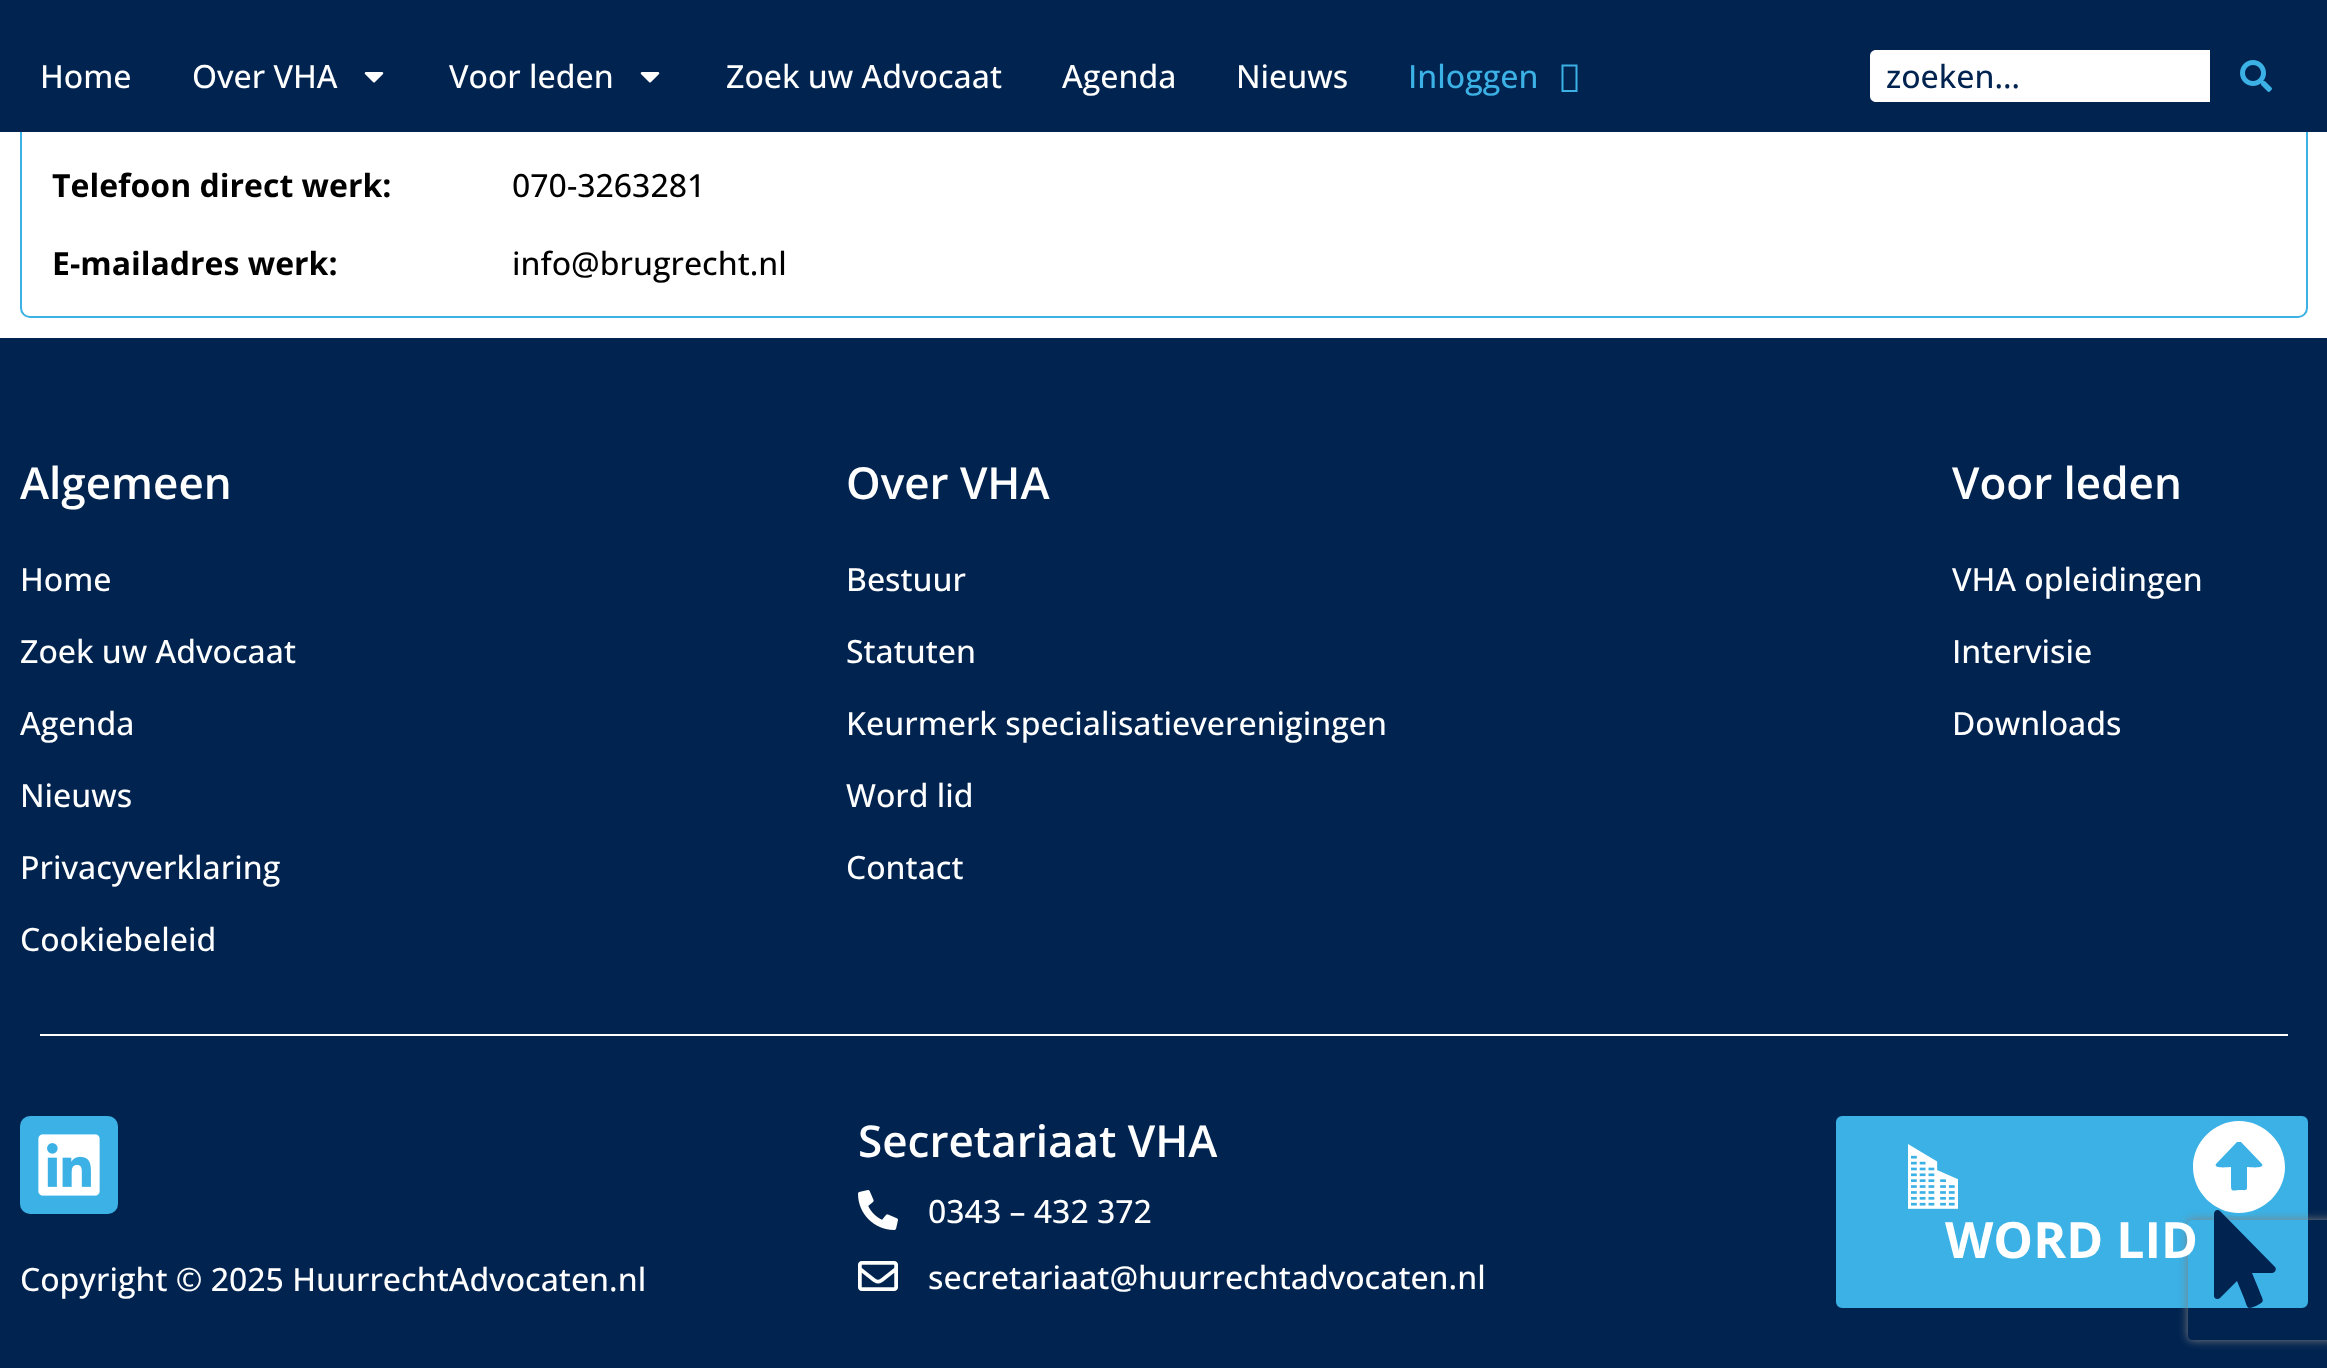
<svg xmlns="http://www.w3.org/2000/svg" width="2327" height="1368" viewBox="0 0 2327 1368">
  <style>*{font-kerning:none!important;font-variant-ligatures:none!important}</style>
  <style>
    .t1 { font: 500 32px Open Sans; fill: #fff; }
    .t2 { font: 500 32px Open Sans; fill: #3bb1e5; }
    .t3 { font: 500 32px Open Sans; fill: #002350; }
    .t4 { font: bold 32px Open Sans; fill: #000; }
    .t5 { font: 500 32px Open Sans; fill: #000; }
    .t6 { font: 600 44px Open Sans; fill: #fff; }
    .t7 { font: bold 50px Open Sans; fill: #fff; }
  </style>
  <defs>
    <clipPath id="clip1"><path d="M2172 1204H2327V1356H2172ZM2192 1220H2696C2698 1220 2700 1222 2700 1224V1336C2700 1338 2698 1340 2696 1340H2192C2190 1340 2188 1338 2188 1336V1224C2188 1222 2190 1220 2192 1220Z" clip-rule="evenodd"/></clipPath>
  </defs>
  <rect width="100%" height="100%" fill="#fff"/>
  <rect x="21" y="-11" width="2286" height="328" rx="9" fill="none" stroke="#3bb1e5" stroke-width="2"/>
  <rect x="0" y="0" width="2327" height="132" fill="#002350"/>
  <text x="40" y="88" class="t1">Home</text>
  <text x="192" y="88" class="t1">Over VHA</text>
  <image x="364" y="72" width="20" height="11" href="images/1.png"/>
  <text x="449" y="88" class="t1">Voor leden</text>
  <image x="640" y="72" width="20" height="11" href="images/1.png"/>
  <text x="726" y="88" class="t1">Zoek uw Advocaat</text>
  <text x="1062" y="88" class="t1">Agenda</text>
  <text x="1236" y="88" class="t1">Nieuws</text>
  <text x="1408" y="88" class="t2">Inloggen</text>
  <path d="M1561.5 92V64.5H1577.5V92ZM1563.5 90H1575.5V66.5H1563.5Z" fill="#3bb1e5"/>
  <path d="M1876 50H2210V102H1876C1872.5 102 1870 99.5 1870 96V56C1870 52.5 1872.5 50 1876 50Z" fill="#fff"/>
  <text x="1886" y="88" class="t3">zoeken…</text>
  <image x="2240" y="60" width="32" height="32" href="images/2.png"/>
  <text x="52" y="197" class="t4">Telefoon direct werk:</text>
  <text x="512" y="197" class="t5">070-3263281</text>
  <text x="52" y="275" class="t4">E-mailadres werk:</text>
  <text x="512" y="275" class="t5">info@brugrecht.nl</text>
  <rect x="0" y="338" width="2327" height="1030" fill="#002350"/>
  <text x="20" y="499" class="t6">Algemeen</text>
  <text x="20" y="591" class="t1">Home</text>
  <text x="20" y="663" class="t1">Zoek uw Advocaat</text>
  <text x="20" y="735" class="t1">Agenda</text>
  <text x="20" y="807" class="t1">Nieuws</text>
  <text x="20" y="879" class="t1">Privacyverklaring</text>
  <text x="20" y="951" class="t1">Cookiebeleid</text>
  <text x="846" y="499" class="t6">Over VHA</text>
  <text x="846" y="591" class="t1">Bestuur</text>
  <text x="846" y="663" class="t1">Statuten</text>
  <text x="846" y="735" class="t1">Keurmerk specialisatieverenigingen</text>
  <text x="846" y="807" class="t1">Word lid</text>
  <text x="846" y="879" class="t1">Contact</text>
  <text x="1952" y="499" class="t6">Voor leden</text>
  <text x="1952" y="591" class="t1">VHA opleidingen</text>
  <text x="1952" y="663" class="t1">Intervisie</text>
  <text x="1952" y="735" class="t1">Downloads</text>
  <rect x="40" y="1034" width="2248" height="2" fill="#fff"/>
  <text x="858" y="1157" class="t6">Secretariaat VHA</text>
  <image x="858" y="1190" width="40" height="40" href="images/3.png"/>
  <text x="928" y="1223" class="t1">0343 – 432 372</text>
  <image x="858" y="1261" width="40" height="30" href="images/4.png"/>
  <text x="928" y="1289" class="t1">secretariaat@huurrechtadvocaten.nl</text>
  <rect x="1837" y="1117" width="470" height="190" rx="5" fill="#3bb1e5" stroke="#3bb1e5" stroke-width="2"/>
  <g clip-path="url(#clip1)">
    <rect x="2188" y="1220" width="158" height="120" rx="4" fill="#808080" filter="blur(5px)"/>
  </g>
  <circle cx="2239" cy="1167" r="49" fill="#3bb1e5"/>
  <path d="M2193 1167C2193 1142 2214 1121 2239 1121C2264 1121 2285 1142 2285 1167C2285 1192 2264 1213 2239 1213C2214 1213 2193 1192 2193 1167ZM2247 1188V1167C2249 1167 2265 1169 2262 1164L2241 1142H2239H2237L2216 1164C2213 1169 2229 1167 2231 1167V1185C2231 1193 2233 1190 2241 1190C2243 1190 2247 1191 2247 1188Z" fill="#fff"/>
  <image x="1908" y="1144" width="50" height="65" href="images/5.png"/>
  <text x="1945" y="1258" class="t7">WORD LID</text>
  <path d="M2272 1273H2252L2259 1290C2263 1301 2266 1301 2256 1306C2246 1310 2248 1308 2244 1298L2237 1281L2220 1298C2218 1300 2214 1299 2214 1296V1214C2214 1210 2218 1209 2220 1211L2275 1267C2277 1269 2275 1273 2272 1273Z" fill="#002350"/>
  <rect x="20" y="1116" width="98" height="98" rx="10" fill="#3bb1e5"/>
  <image x="38" y="1134" width="62" height="62" href="images/6.png"/>
  <text x="20" y="1291" class="t1">Copyright © 2025 HuurrechtAdvocaten.nl</text>
</svg>
